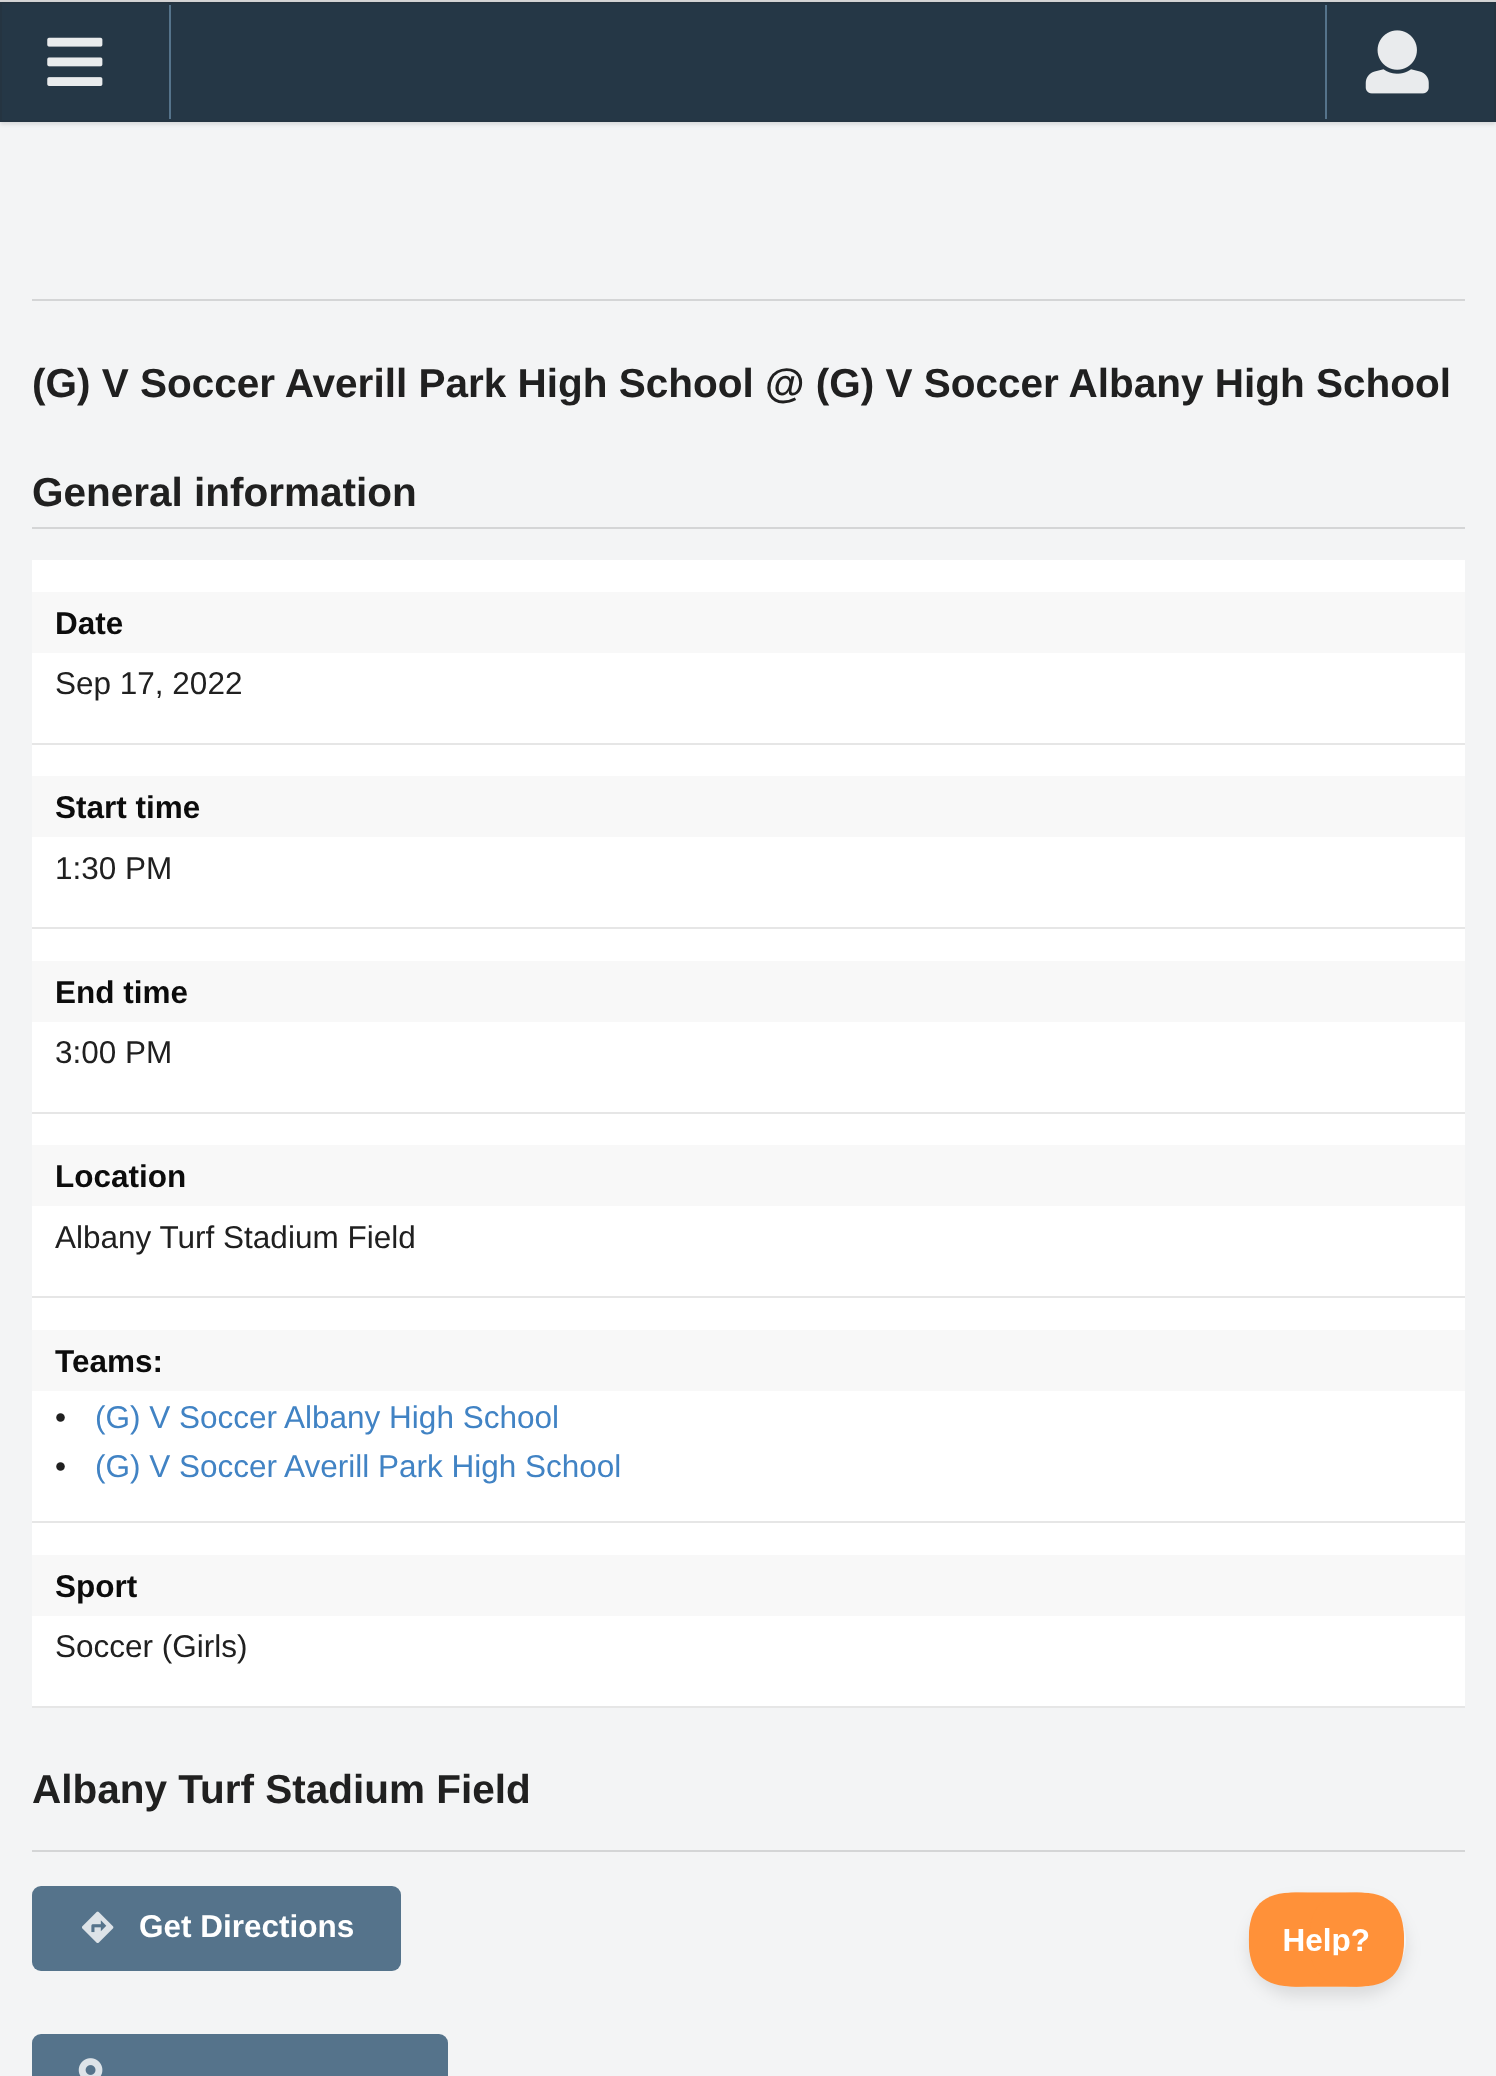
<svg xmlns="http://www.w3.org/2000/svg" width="1496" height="2076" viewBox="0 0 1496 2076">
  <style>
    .t1 { font: bold 40.5px Liberation Sans; fill: #202020; }
    .t2 { font: bold 31.5px Liberation Sans; fill: #0c0c0c; }
    .t3 { font: 31.5px Liberation Sans; fill: #202020; }
    .t4 { font: 31.5px Liberation Sans; fill: #4183c4; }
    .t5 { font: bold 31.5px Liberation Sans; fill: #fff; }
  </style>
  <defs>
    <clipPath id="clip1"><path d="M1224 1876H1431V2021H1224ZM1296.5 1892H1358.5C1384.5 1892 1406 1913.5 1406 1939.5C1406 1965.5 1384.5 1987 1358.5 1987H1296.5C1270.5 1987 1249 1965.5 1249 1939.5C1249 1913.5 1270.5 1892 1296.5 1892Z" clip-rule="evenodd"/></clipPath>
  </defs>
  <rect width="100%" height="100%" fill="#fff"/>
  <rect x="-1" y="1" width="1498" height="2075" fill="none" stroke="#d4d4d5" stroke-width="2"/>
  <rect x="0" y="122" width="1496" height="1954" fill="#f3f4f5"/>
  <rect x="0" y="5" width="1496" height="119" fill="#22242626" filter="blur(2px)"/>
  <rect x="1" y="3" width="1494" height="118" fill="#253746" stroke="#253441" stroke-width="2"/>
  <image x="47" y="37" width="56" height="49" href="images/1.png"/>
  <rect x="169" y="5" width="2" height="114" fill="#55738b"/>
  <rect x="1325" y="5" width="2" height="114" fill="#55738b"/>
  <image x="1365" y="30" width="64" height="64" href="images/2.png"/>
  <rect x="32" y="299" width="1433" height="2" fill="#d4d5d6"/>
  <text x="32" y="397" class="t1">(G) V Soccer Averill Park High School @ (G) V Soccer Albany High School</text>
  <rect x="32" y="527" width="1433" height="2" fill="#d4d5d6"/>
  <text x="32" y="506" class="t1">General information</text>
  <rect x="32" y="560" width="1433" height="1146" fill="#fff"/>
  <rect x="32" y="743" width="1433" height="2" fill="#e6e6e6"/>
  <rect x="32" y="592" width="1433" height="61" fill="#f8f8f8"/>
  <text x="55" y="634" class="t2">Date</text>
  <text x="55" y="694" class="t3">Sep 17, 2022</text>
  <rect x="32" y="927" width="1433" height="2" fill="#e6e6e6"/>
  <rect x="32" y="776" width="1433" height="61" fill="#f8f8f8"/>
  <text x="55" y="818" class="t2">Start time</text>
  <text x="55" y="879" class="t3">1:30 PM</text>
  <rect x="32" y="1112" width="1433" height="2" fill="#e6e6e6"/>
  <rect x="32" y="961" width="1433" height="61" fill="#f8f8f8"/>
  <text x="55" y="1003" class="t2">End time</text>
  <text x="55" y="1063" class="t3">3:00 PM</text>
  <rect x="32" y="1296" width="1433" height="2" fill="#e6e6e6"/>
  <rect x="32" y="1145" width="1433" height="61" fill="#f8f8f8"/>
  <text x="55" y="1187" class="t2">Location</text>
  <text x="55" y="1248" class="t3">Albany Turf Stadium Field</text>
  <rect x="32" y="1521" width="1433" height="2" fill="#e6e6e6"/>
  <rect x="32" y="1330" width="1433" height="61" fill="#f8f8f8"/>
  <text x="55" y="1372" class="t2">Teams:</text>
  <text x="55" y="1428" class="t3">•</text>
  <text x="95" y="1428" class="t4">(G) V Soccer Albany High School</text>
  <text x="55" y="1477" class="t3">•</text>
  <text x="95" y="1477" class="t4">(G) V Soccer Averill Park High School</text>
  <rect x="32" y="1706" width="1433" height="2" fill="#e6e6e6"/>
  <rect x="32" y="1555" width="1433" height="61" fill="#f8f8f8"/>
  <text x="55" y="1597" class="t2">Sport</text>
  <text x="55" y="1657" class="t3">Soccer (Girls)</text>
  <text x="32" y="1803" class="t1">Albany Turf Stadium Field</text>
  <rect x="32" y="1850" width="1433" height="2" fill="#d4d5d6"/>
  <rect x="32" y="1886" width="369" height="85" rx="9" fill="#55738b"/>
  <image x="82" y="1911" width="32" height="32" href="images/3.png"/>
  <text x="139" y="1937" class="t5">Get Directions</text>
  <rect x="32" y="2034" width="416" height="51" rx="9" fill="#55738b"/>
  <image x="78" y="2058" width="25" height="18" href="images/4.png"/>
  <g clip-path="url(#clip1)">
    <rect x="1249" y="1901" width="157" height="95" rx="47.5" fill="#0000001a" filter="blur(8px)"/>
  </g>
  <image x="1248" y="1892" width="156" height="95" href="images/5.png"/>
</svg>
